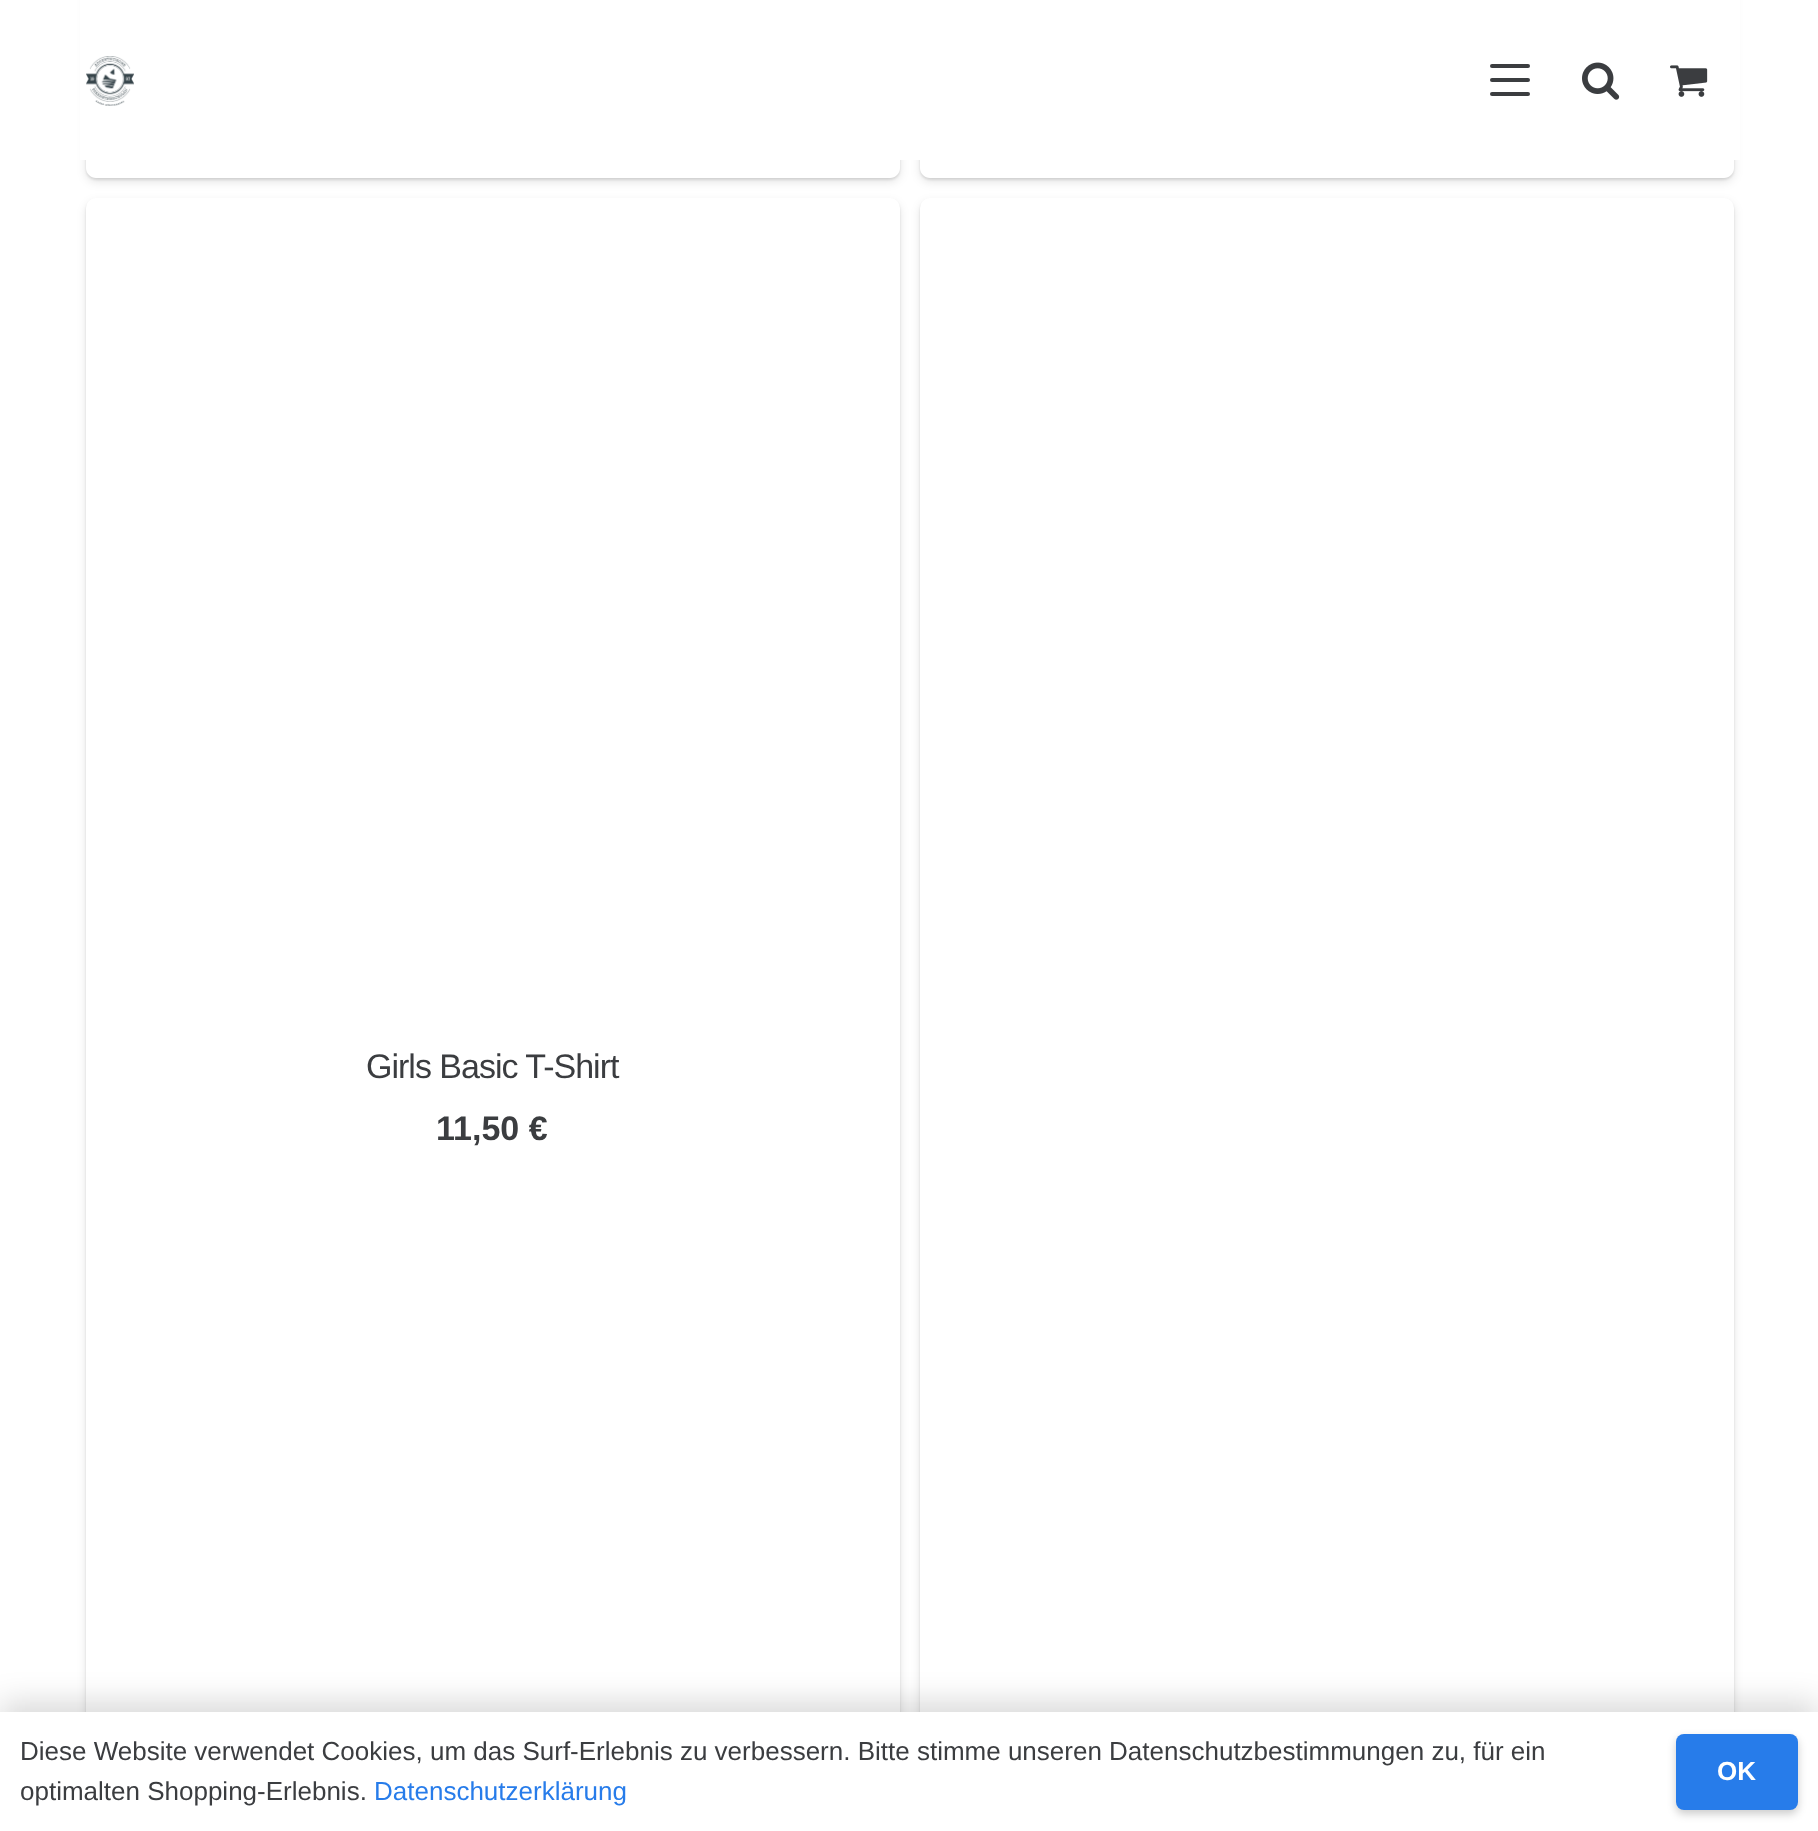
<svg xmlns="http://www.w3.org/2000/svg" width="1818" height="1831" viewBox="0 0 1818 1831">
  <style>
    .t1 { font: 34px Liberation Sans; letter-spacing: -1px; fill: #3b3d40; }
    .t2 { font: bold 34px Liberation Sans; fill: #3b3d40; }
    .t3 { font: 26px Liberation Sans; fill: #3b3d40; }
    .t4 { font: 26px Liberation Sans; fill: #277cea; }
    .t5 { font: bold 26px Liberation Sans; fill: #fff; }
  </style>
  <rect width="100%" height="100%" fill="#fff"/>
  <rect x="86" y="-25" width="814" height="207" rx="10" fill="#0000001a" filter="blur(5px)"/>
  <rect x="86" y="-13" width="814" height="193" rx="10" fill="#0000001a" filter="blur(1px)"/>
  <path d="M86-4H900V168C900 173.5 895.5 178 890 178H96C90.5 178 86 173.5 86 168Z" fill="#fff"/>
  <rect x="920" y="-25" width="814" height="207" rx="10" fill="#0000001a" filter="blur(5px)"/>
  <rect x="920" y="-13" width="814" height="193" rx="10" fill="#0000001a" filter="blur(1px)"/>
  <path d="M920-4H1734V168C1734 173.5 1729.5 178 1724 178H930C924.5 178 920 173.5 920 168Z" fill="#fff"/>
  <rect x="80" y="0" width="1660" height="160" fill="#fff"/>
  <image x="86" y="56" width="48" height="50" href="images/1.png"/>
  <rect x="1490" y="78" width="40" height="4" rx="2" fill="#3b3d40"/>
  <rect x="1490" y="64" width="40" height="4" rx="2" fill="#3b3d40"/>
  <rect x="1490" y="92" width="40" height="4" rx="2" fill="#3b3d40"/>
  <image x="1582" y="62" width="38" height="38" href="images/2.png"/>
  <image x="1670" y="65" width="38" height="32" href="images/3.png"/>
  <rect x="86" y="202" width="814" height="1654" rx="10" fill="#0000001a" filter="blur(5px)"/>
  <rect x="86" y="200" width="814" height="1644" rx="10" fill="#0000001a" filter="blur(1px)"/>
  <rect x="86" y="198" width="814" height="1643" rx="10" fill="#fff"/>
  <text x="366" y="1078" class="t1">Girls Basic T-Shirt</text>
  <text x="436" y="1140" class="t2">11,50 €</text>
  <rect x="920" y="202" width="814" height="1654" rx="10" fill="#0000001a" filter="blur(5px)"/>
  <rect x="920" y="200" width="814" height="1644" rx="10" fill="#0000001a" filter="blur(1px)"/>
  <rect x="920" y="198" width="814" height="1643" rx="10" fill="#fff"/>
  <rect x="0" y="1702" width="1818" height="120" fill="#00000026" filter="blur(15px)"/>
  <rect x="0" y="1712" width="1818" height="119" fill="#fff"/>
  <text x="20" y="1760" class="t3">Diese Website verwendet Cookies, um das Surf-Erlebnis zu verbessern. Bitte stimme unseren Datenschutzbestimmungen zu, für ein</text>
  <text x="20" y="1800" class="t3">optimalten Shopping-Erlebnis.</text>
  <text x="374" y="1800" class="t4">Datenschutzerklärung</text>
  <rect x="1676" y="1738" width="122" height="76" rx="8" fill="#00000033" filter="blur(4px)"/>
  <rect x="1676" y="1734" width="122" height="76" rx="8" fill="#277cea"/>
  <text x="1717" y="1780" class="t5">OK</text>
</svg>
